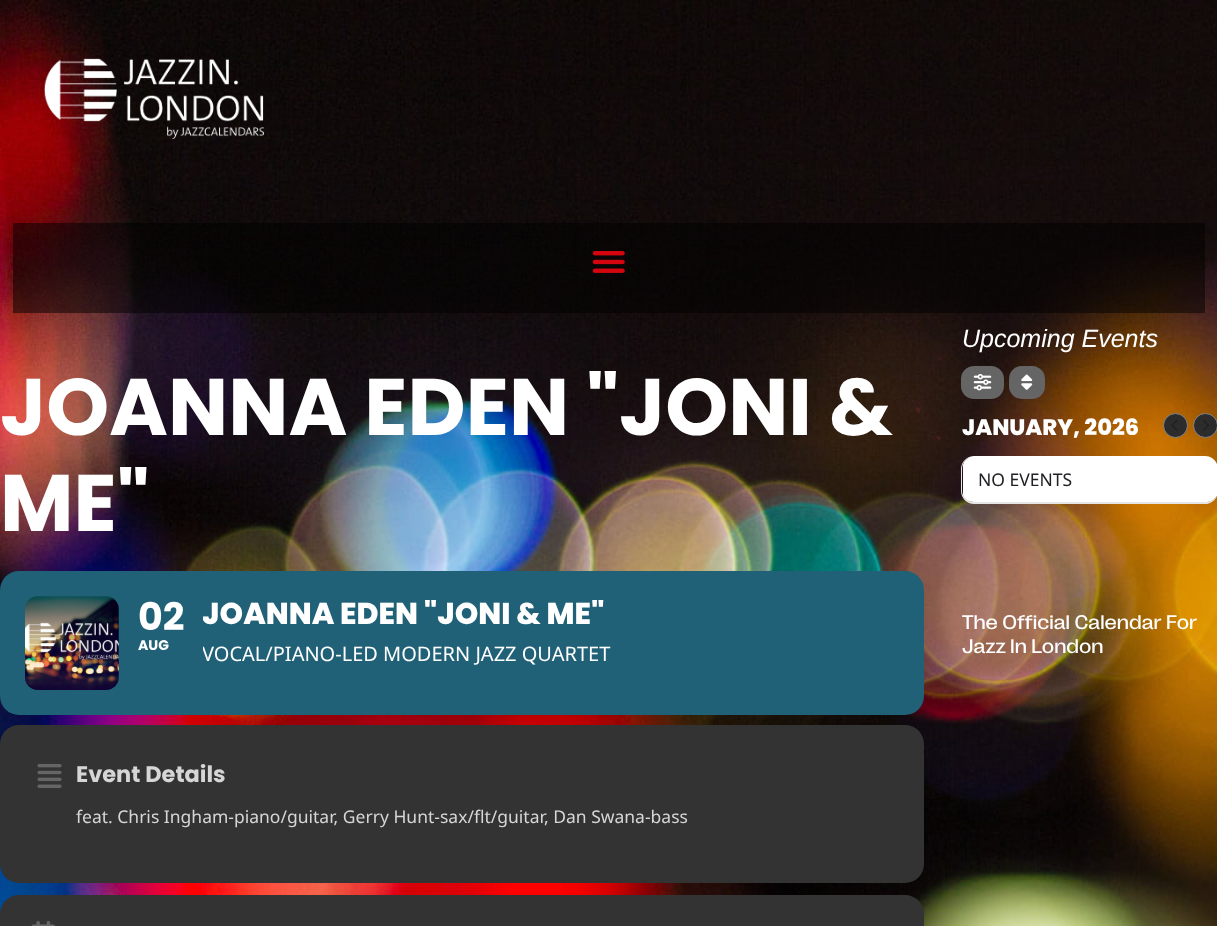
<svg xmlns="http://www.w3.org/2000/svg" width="1217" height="926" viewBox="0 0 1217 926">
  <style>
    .t1 { font: bold 80px Poppins; fill: #fff; }
    .t2 { font: bold 38px Poppins; fill: #fff; }
    .t3 { font: bold 14px Poppins; fill: #fff; }
    .t4 { font: 800 30px Poppins; fill: #fff; }
    .t5 { font: 20px Noto Sans; fill: #fff; }
    .t6 { font: bold 22.5px Poppins; fill: #d6d6d6; }
    .t7 { font: 17.5px Noto Sans; fill: #d6d6d6; }
    .t8 { font: italic 25px Liberation Sans; fill: #fff; }
    .t9 { font: 800 22.5px Poppins; fill: #fff; }
    .t10 { font: 17.5px Noto Sans; fill: #202124; }
    .t11 { font: 20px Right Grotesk; fill: #fff; }
  </style>
  <defs>
    <clipPath id="clip1"><rect x="203" y="596" width="677" height="94"/></clipPath>
  </defs>
  <rect width="100%" height="100%" fill="#fff"/>
  <image x="0" y="0" width="1217" height="926" href="images/1.png"/>
  <image x="44" y="58" width="221" height="81" href="images/2.png"/>
  <rect x="13" y="223" width="1192" height="90" fill="#00000080"/>
  <image x="592" y="251" width="33" height="22" href="images/3.png"/>
  <text x="0" y="435" class="t1">JOANNA EDEN "JONI &amp;</text>
  <text x="0" y="531" class="t1">ME"</text>
  <rect x="0" y="571" width="924" height="144" rx="19" fill="#206177"/>
  <image x="25" y="596" width="94" height="94" href="images/4.png"/>
  <text x="138" y="630" class="t2">02</text>
  <text x="138" y="650" class="t3">AUG</text>
  <g clip-path="url(#clip1)">
    <text x="202" y="624" class="t4">JOANNA EDEN "JONI &amp; ME"</text>
    <text x="202" y="661" class="t5">VOCAL/PIANO-LED MODERN JAZZ QUARTET</text>
  </g>
  <rect x="0" y="725" width="924" height="158" rx="19" fill="#333"/>
  <image x="37" y="764" width="25" height="24" href="images/5.png"/>
  <text x="76" y="782" class="t6">Event Details</text>
  <text x="76" y="823" class="t7">feat. Chris Ingham-piano/guitar, Gerry Hunt-sax/flt/guitar, Dan Swana-bass</text>
  <rect x="0" y="895" width="924" height="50" rx="19" fill="#333"/>
  <image x="31" y="921" width="24" height="5" href="images/6.png"/>
  <text x="962" y="347" class="t8">Upcoming Events</text>
  <rect x="961" y="366" width="43" height="33" rx="13" fill="#656565"/>
  <image x="973" y="374" width="19" height="17" href="images/7.png"/>
  <rect x="1009" y="366" width="36" height="33" rx="13" fill="#656565"/>
  <image x="1021" y="374" width="12" height="16" href="images/8.png"/>
  <text x="962" y="435" class="t9">JANUARY, 2026</text>
  <circle cx="1175.5" cy="425.5" r="12" fill="#2c2c2c" stroke="#868686"/>
  <image x="1171" y="420" width="7" height="11" href="images/9.png"/>
  <circle cx="1205.5" cy="425.5" r="12" fill="#2c2c2c" stroke="#868686"/>
  <image x="1203" y="420" width="6" height="11" href="images/10.png"/>
  <path d="M974 456H1205C1212 456 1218 462 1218 469V491C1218 498 1212 504 1205 504H974C967 504 961 498 961 491V469C961 462 967 456 974 456ZM974 456H1205C1212 456 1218 462 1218 469V491C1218 497 1212 502 1205 502H974C968 502 962 497 962 491V469C962 462 968 456 974 456Z" fill="#e5e5e5" fill-rule="evenodd"/>
  <path d="M974 456C969 456 964 460 963 465V495C964 499 969 502 974 502H1205C1212 502 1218 497 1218 491V469C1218 462 1212 456 1205 456Z" fill="#fff"/>
  <text x="978" y="486" class="t10">NO EVENTS</text>
  <text x="962" y="629" class="t11">The Official Calendar For</text>
  <text x="962" y="653" class="t11">Jazz In London</text>
</svg>
